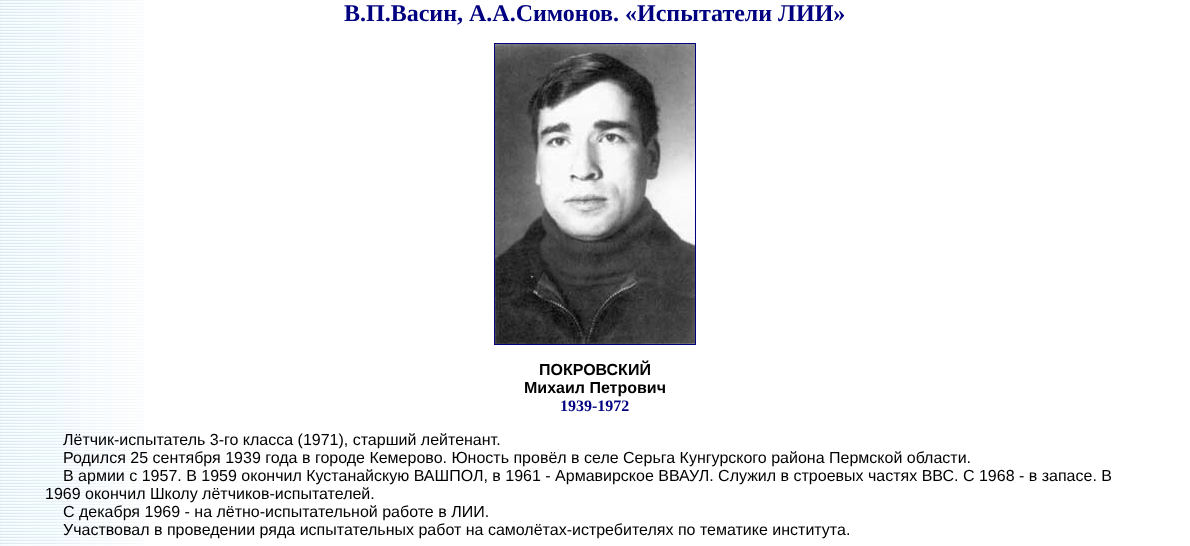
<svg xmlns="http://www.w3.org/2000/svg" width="1190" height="546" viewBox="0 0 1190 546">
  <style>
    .t1 { font: bold 24px Liberation Serif; fill: #000080; }
    .t2 { font: bold 16px Liberation Sans; fill: #000; }
    .t3 { font: bold 16px Liberation Serif; fill: #000080; }
    .t4 { font: 16px Liberation Sans; fill: #000; }
  </style>
  <rect width="100%" height="100%" fill="#fff"/>
  <image x="0" y="0" width="144" height="546" href="images/1.png"/>
  <text x="344" y="21" class="t1">В.П.Васин, А.А.Симонов. «Испытатели ЛИИ»</text>
  <rect x="494.5" y="43.5" width="201" height="301" fill="none" stroke="#000080"/>
  <image x="495" y="44" width="200" height="300" href="images/2.png"/>
  <text x="539" y="375" class="t2">ПОКРОВСКИЙ</text>
  <text x="524" y="393" class="t2">Михаил Петрович</text>
  <text x="560" y="411" class="t3">1939-1972</text>
  <text x="63" y="445" class="t4">Лётчик-испытатель 3-го класса (1971), старший лейтенант.</text>
  <text x="63" y="463" class="t4">Родился 25 сентября 1939 года в городе Кемерово. Юность провёл в селе Серьга Кунгурского района Пермской области.</text>
  <text x="63" y="481" class="t4">В армии с 1957. В 1959 окончил Кустанайскую ВАШПОЛ, в 1961 - Армавирское ВВАУЛ. Служил в строевых частях ВВС. С 1968 - в запасе. В</text>
  <text x="45" y="499" class="t4">1969 окончил Школу лётчиков-испытателей.</text>
  <text x="63" y="517" class="t4">С декабря 1969 - на лётно-испытательной работе в ЛИИ.</text>
  <text x="63" y="535" class="t4">Участвовал в проведении ряда испытательных работ на самолётах-истребителях по тематике института.</text>
</svg>
